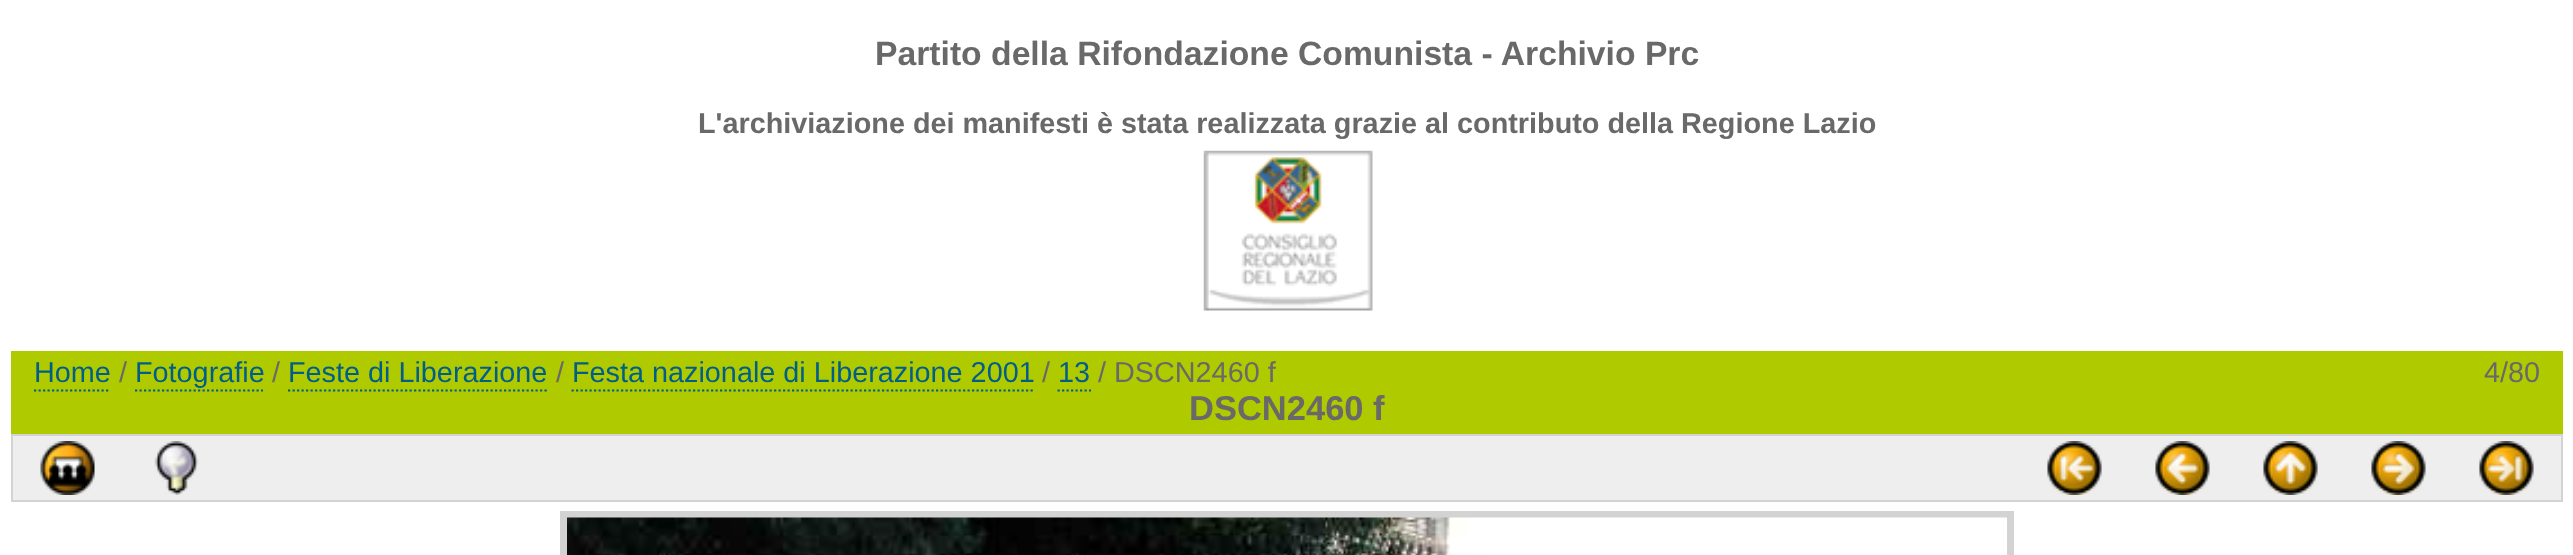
<svg xmlns="http://www.w3.org/2000/svg" width="2573" height="555" viewBox="0 0 2573 555">
  <style>
    .t1 { font: bold 33.7px Liberation Sans; fill: #696969; }
    .t2 { font: bold 28.8px Liberation Sans; fill: #696969; }
    .t3 { font: 28.8px Liberation Sans; fill: #005e89; }
    .t4 { font: 28.8px Liberation Sans; fill: #696969; }
    .t5 { font: bold 34.5px Liberation Sans; fill: #696969; }
  </style>
  <rect width="100%" height="100%" fill="#fff"/>
  <text x="875" y="65" class="t1">Partito della Rifondazione Comunista - Archivio Prc</text>
  <text x="698" y="133" class="t2">L'archiviazione dei manifesti è stata realizzata grazie al contributo della Regione Lazio</text>
  <image x="1203" y="150" width="170" height="161" href="images/1.png"/>
  <rect x="11" y="351" width="2552" height="83" fill="#b0ca00"/>
  <text x="34" y="382" class="t3">Home</text>
  <path d="M34 390.5H110" fill="none" stroke="#005e89" stroke-width="2.2" stroke-dasharray="2.25 2.25"/>
  <text x="119" y="382" class="t4">/</text>
  <text x="135" y="382" class="t3">Fotografie</text>
  <path d="M135 390.5H263" fill="none" stroke="#005e89" stroke-width="2.2" stroke-dasharray="2.25 2.25"/>
  <text x="272" y="382" class="t4">/</text>
  <text x="288" y="382" class="t3">Feste di Liberazione</text>
  <path d="M288 390.5H547" fill="none" stroke="#005e89" stroke-width="2.2" stroke-dasharray="2.25 2.25"/>
  <text x="556" y="382" class="t4">/</text>
  <text x="572" y="382" class="t3">Festa nazionale di Liberazione 2001</text>
  <path d="M571.5 390.5H1035" fill="none" stroke="#005e89" stroke-width="2.2" stroke-dasharray="2.25 2.25"/>
  <text x="1042" y="382" class="t4">/</text>
  <text x="1058" y="382" class="t3">13</text>
  <path d="M1057.5 390.5H1091" fill="none" stroke="#005e89" stroke-width="2.2" stroke-dasharray="2.25 2.25"/>
  <text x="1098" y="382" class="t4">/ DSCN2460 f</text>
  <text x="2484" y="382" class="t4">4/80</text>
  <text x="1189" y="420" class="t5">DSCN2460 f</text>
  <rect x="12" y="435" width="2550" height="66" fill="#eee" stroke="#d3d3d3" stroke-width="2"/>
  <image x="40" y="441" width="55" height="54" href="images/2.png"/>
  <image x="154" y="441" width="45" height="54" href="images/3.png"/>
  <image x="2047" y="441" width="55" height="54" href="images/4.png"/>
  <image x="2155" y="441" width="55" height="54" href="images/5.png"/>
  <image x="2263" y="441" width="55" height="54" href="images/6.png"/>
  <image x="2371" y="441" width="55" height="54" href="images/7.png"/>
  <image x="2479" y="441" width="55" height="54" href="images/8.png"/>
  <rect x="563.5" y="514.5" width="1447" height="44" fill="none" stroke="#d3d3d3" stroke-width="7"/>
  <image x="567" y="517" width="1440" height="38" href="images/9.png"/>
</svg>
